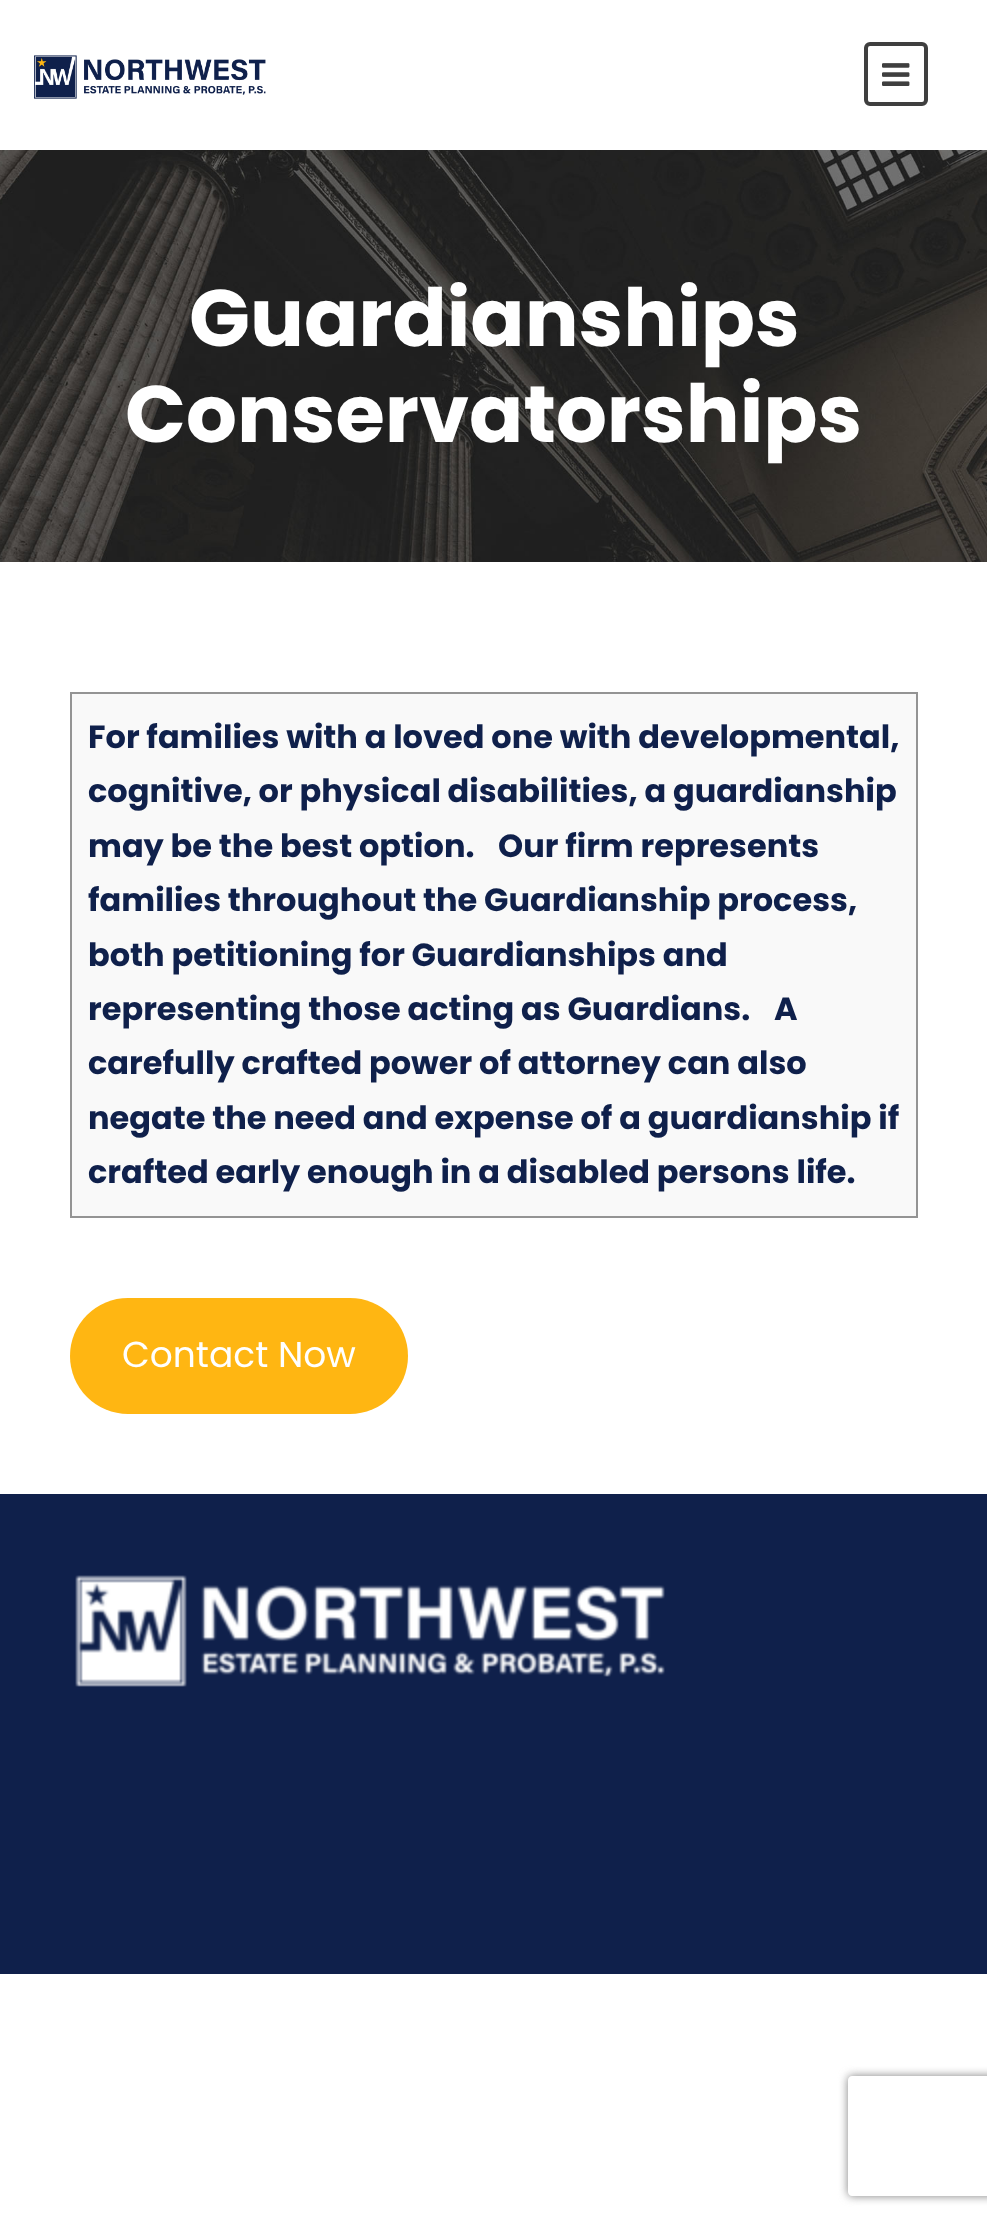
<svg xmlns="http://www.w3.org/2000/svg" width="987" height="2223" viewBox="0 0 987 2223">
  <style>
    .t1 { font: bold 80px Poppins; fill: #fff; }
    .t2 { font: bold 32px Poppins; fill: #0f204b; }
    .t3 { font: 36px Poppins; fill: #fff; }
  </style>
  <defs>
    <clipPath id="clip1"><path d="M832 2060H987V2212H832ZM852 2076H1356C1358 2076 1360 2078 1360 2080V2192C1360 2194 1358 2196 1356 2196H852C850 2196 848 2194 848 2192V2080C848 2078 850 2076 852 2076Z" clip-rule="evenodd"/></clipPath>
  </defs>
  <rect width="100%" height="100%" fill="#fff"/>
  <image x="34" y="55" width="232" height="44" href="images/1.png"/>
  <rect x="866" y="44" width="60" height="60" rx="4" fill="none" stroke="#3f3f3f" stroke-width="4"/>
  <image x="882" y="63" width="28" height="23" href="images/2.png"/>
  <image x="0" y="150" width="987" height="412" href="images/3.png"/>
  <text x="189" y="346" class="t1">Guardianships</text>
  <text x="125" y="442" class="t1">Conservatorships</text>
  <rect x="72" y="694" width="844" height="522" fill="#f9f9f9"/>
  <rect x="70" y="692" width="848" height="2" fill="#949494"/>
  <rect x="916" y="692" width="2" height="526" fill="#949494"/>
  <rect x="70" y="1216" width="848" height="2" fill="#949494"/>
  <rect x="70" y="692" width="2" height="526" fill="#949494"/>
  <text x="88" y="748" class="t2">For families with a loved one with developmental,</text>
  <text x="88" y="802" class="t2">cognitive, or physical disabilities, a guardianship</text>
  <text x="88" y="857" class="t2">may be the best option.</text>
  <text x="498" y="857" class="t2">Our firm represents</text>
  <text x="88" y="911" class="t2">families throughout the Guardianship process,</text>
  <text x="88" y="966" class="t2">both petitioning for Guardianships and</text>
  <text x="88" y="1020" class="t2">representing those acting as Guardians.</text>
  <text x="774" y="1020" class="t2">A</text>
  <text x="88" y="1074" class="t2">carefully crafted power of attorney can also</text>
  <text x="88" y="1129" class="t2">negate the need and expense of a guardianship if</text>
  <text x="88" y="1183" class="t2">crafted early enough in a disabled persons life.</text>
  <rect x="70" y="1298" width="338" height="116" rx="58" fill="#ffb612"/>
  <text x="122" y="1367" class="t3">Contact Now</text>
  <rect x="0" y="1494" width="987" height="480" fill="#0f204b"/>
  <image x="75" y="1575" width="590" height="112" href="images/4.png"/>
  <g clip-path="url(#clip1)">
    <rect x="848" y="2076" width="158" height="120" rx="4" fill="#808080" filter="blur(5px)"/>
  </g>
</svg>
